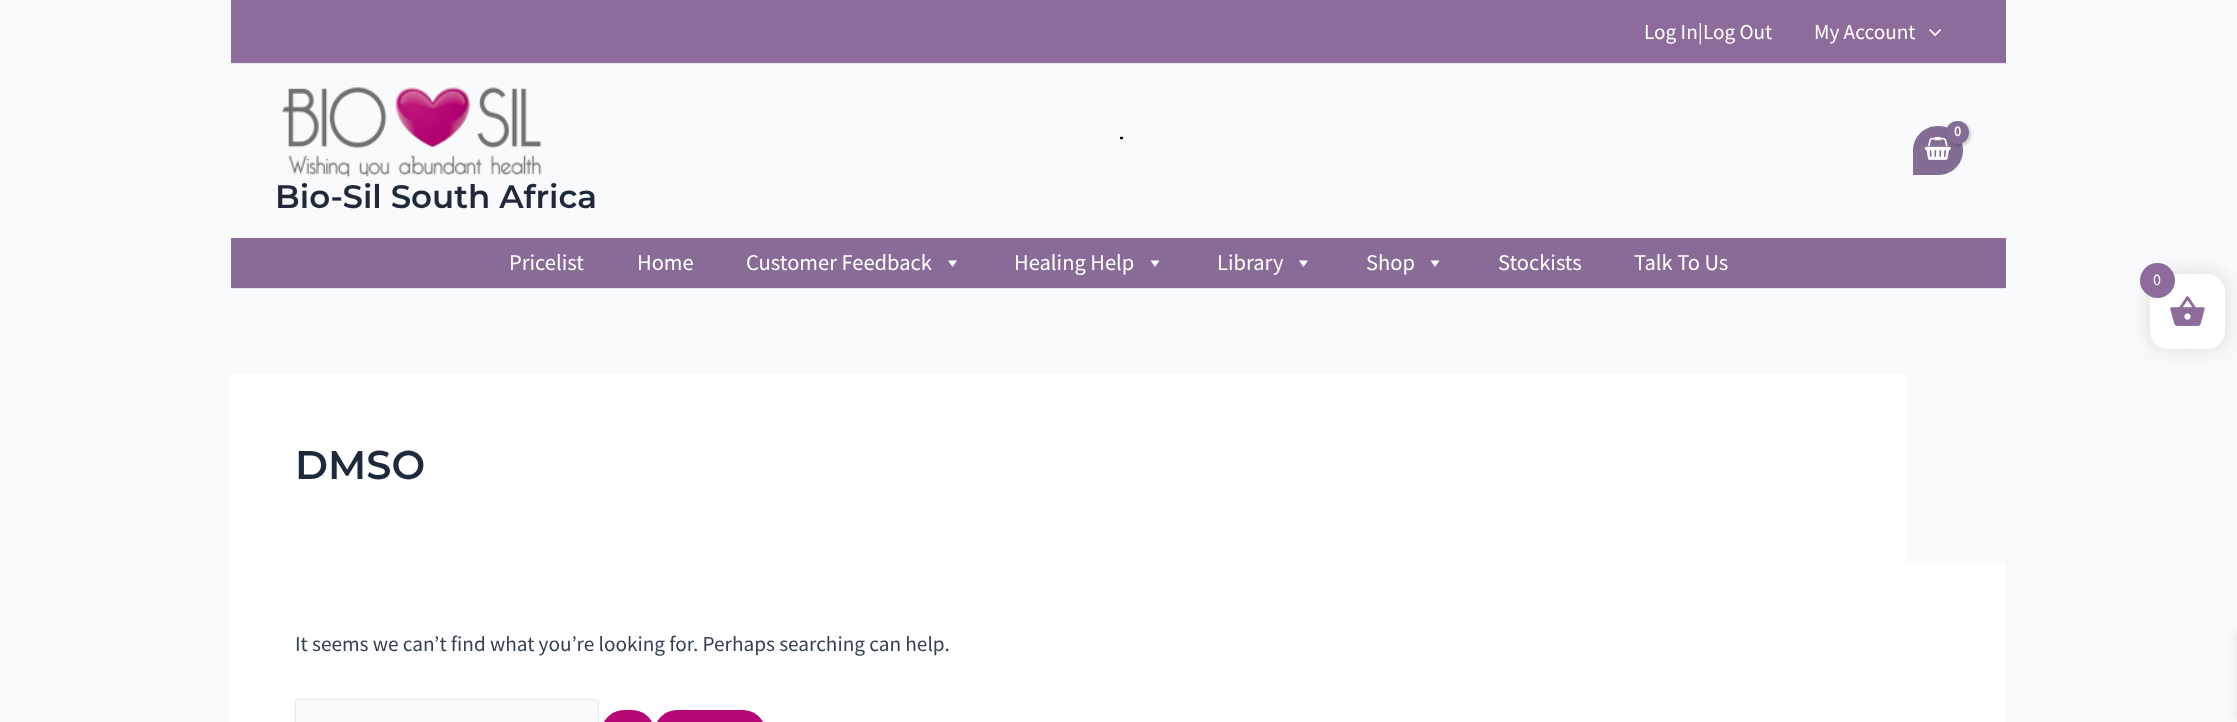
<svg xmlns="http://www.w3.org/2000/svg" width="2237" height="722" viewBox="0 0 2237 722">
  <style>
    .t1 { font: 21.25px Source Sans Pro; fill: #fff; }
    .t2 { font: bold 14px Source Sans Pro; letter-spacing: -1px; fill: #fff; }
    .t3 { font: 600 32.5px Montserrat; fill: #1e293b; }
    .t4 { font: 22.5px Source Sans Pro; fill: #fff; }
    .t5 { font: 600 40px Montserrat; fill: #1e293b; }
    .t6 { font: 21.25px Source Sans Pro; fill: #334155; }
    .t7 { font: 16px Source Sans Pro; fill: #fff; }
  </style>
  <rect width="100%" height="100%" fill="#f9fafb"/>
  <rect x="231" y="0" width="1775" height="63" fill="#8d6b9a"/>
  <rect x="231" y="63" width="1775" height="1" fill="#e2e8f0"/>
  <text x="1644" y="39" class="t1">Log In|Log Out</text>
  <text x="1814" y="39" class="t1">My Account</text>
  <image x="1929" y="29" width="12" height="8" href="images/1.png"/>
  <path d="M1937.5 126H1938.5C1952 126 1963 137 1963 150.5C1963 164 1952 175 1938.5 175H1913V150.5C1913 137 1924 126 1937.5 126Z" fill="#846d94"/>
  <image x="1924" y="137" width="27" height="23" href="images/2.png"/>
  <rect x="1948" y="123" width="22" height="22" rx="11" fill="#0000004d" filter="blur(2px)"/>
  <circle cx="1957.5" cy="132.5" r="11.5" fill="#846d94"/>
  <text x="1954" y="136" class="t2">0</text>
  <path d="M1121 138H1122" fill="none" stroke="#000" stroke-width="2.4" stroke-linecap="round"/>
  <image x="281" y="87" width="261" height="90" href="images/3.png"/>
  <text x="275" y="208" class="t3">Bio-Sil South Africa</text>
  <rect x="231" y="238" width="1775" height="50" fill="#886c97"/>
  <rect x="231" y="288" width="1775" height="1" fill="#e2e8f0"/>
  <text x="509" y="270" class="t4">Pricelist</text>
  <text x="637" y="270" class="t4">Home</text>
  <text x="746" y="270" class="t4">Customer Feedback</text>
  <path d="M957 260.5L952.5 267L948 260.5Z" fill="#fff"/>
  <text x="1014" y="270" class="t4">Healing Help</text>
  <path d="M1159.5 260.5L1155 267L1150.5 260.5Z" fill="#fff"/>
  <text x="1217" y="270" class="t4">Library</text>
  <path d="M1308 260.5L1303.5 267L1299 260.5Z" fill="#fff"/>
  <text x="1366" y="270" class="t4">Shop</text>
  <path d="M1439.5 260.5L1435 267L1430.5 260.5Z" fill="#fff"/>
  <text x="1498" y="270" class="t4">Stockists</text>
  <text x="1634" y="270" class="t4">Talk To Us</text>
  <rect x="231" y="374" width="1675" height="189" fill="#fff"/>
  <text x="295" y="479" class="t5">DMSO</text>
  <rect x="231" y="563" width="1775" height="159" fill="#fff"/>
  <text x="295" y="651" class="t6">It seems we can’t find what you’re looking for. Perhaps searching can help.</text>
  <rect x="295.5" y="699.5" width="303" height="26" rx="2" fill="#f9fafb" stroke="#e2e8f0"/>
  <rect x="603" y="710" width="50" height="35" rx="22.5" fill="#b60774"/>
  <rect x="656" y="710" width="108" height="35" rx="22.5" fill="#b60774"/>
  <rect x="2148" y="271" width="80" height="80" rx="20" fill="#0000001a" filter="blur(9.5px)"/>
  <rect x="2150" y="274" width="75" height="75" rx="18" fill="#fff"/>
  <image x="2170" y="296" width="35" height="30" href="images/4.png"/>
  <circle cx="2157.5" cy="280.5" r="17.5" fill="#8d6b9a"/>
  <text x="2153" y="285" class="t7">0</text>
  <rect x="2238" y="631" width="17" height="90" fill="#0000001a" filter="blur(6px)"/>
</svg>
